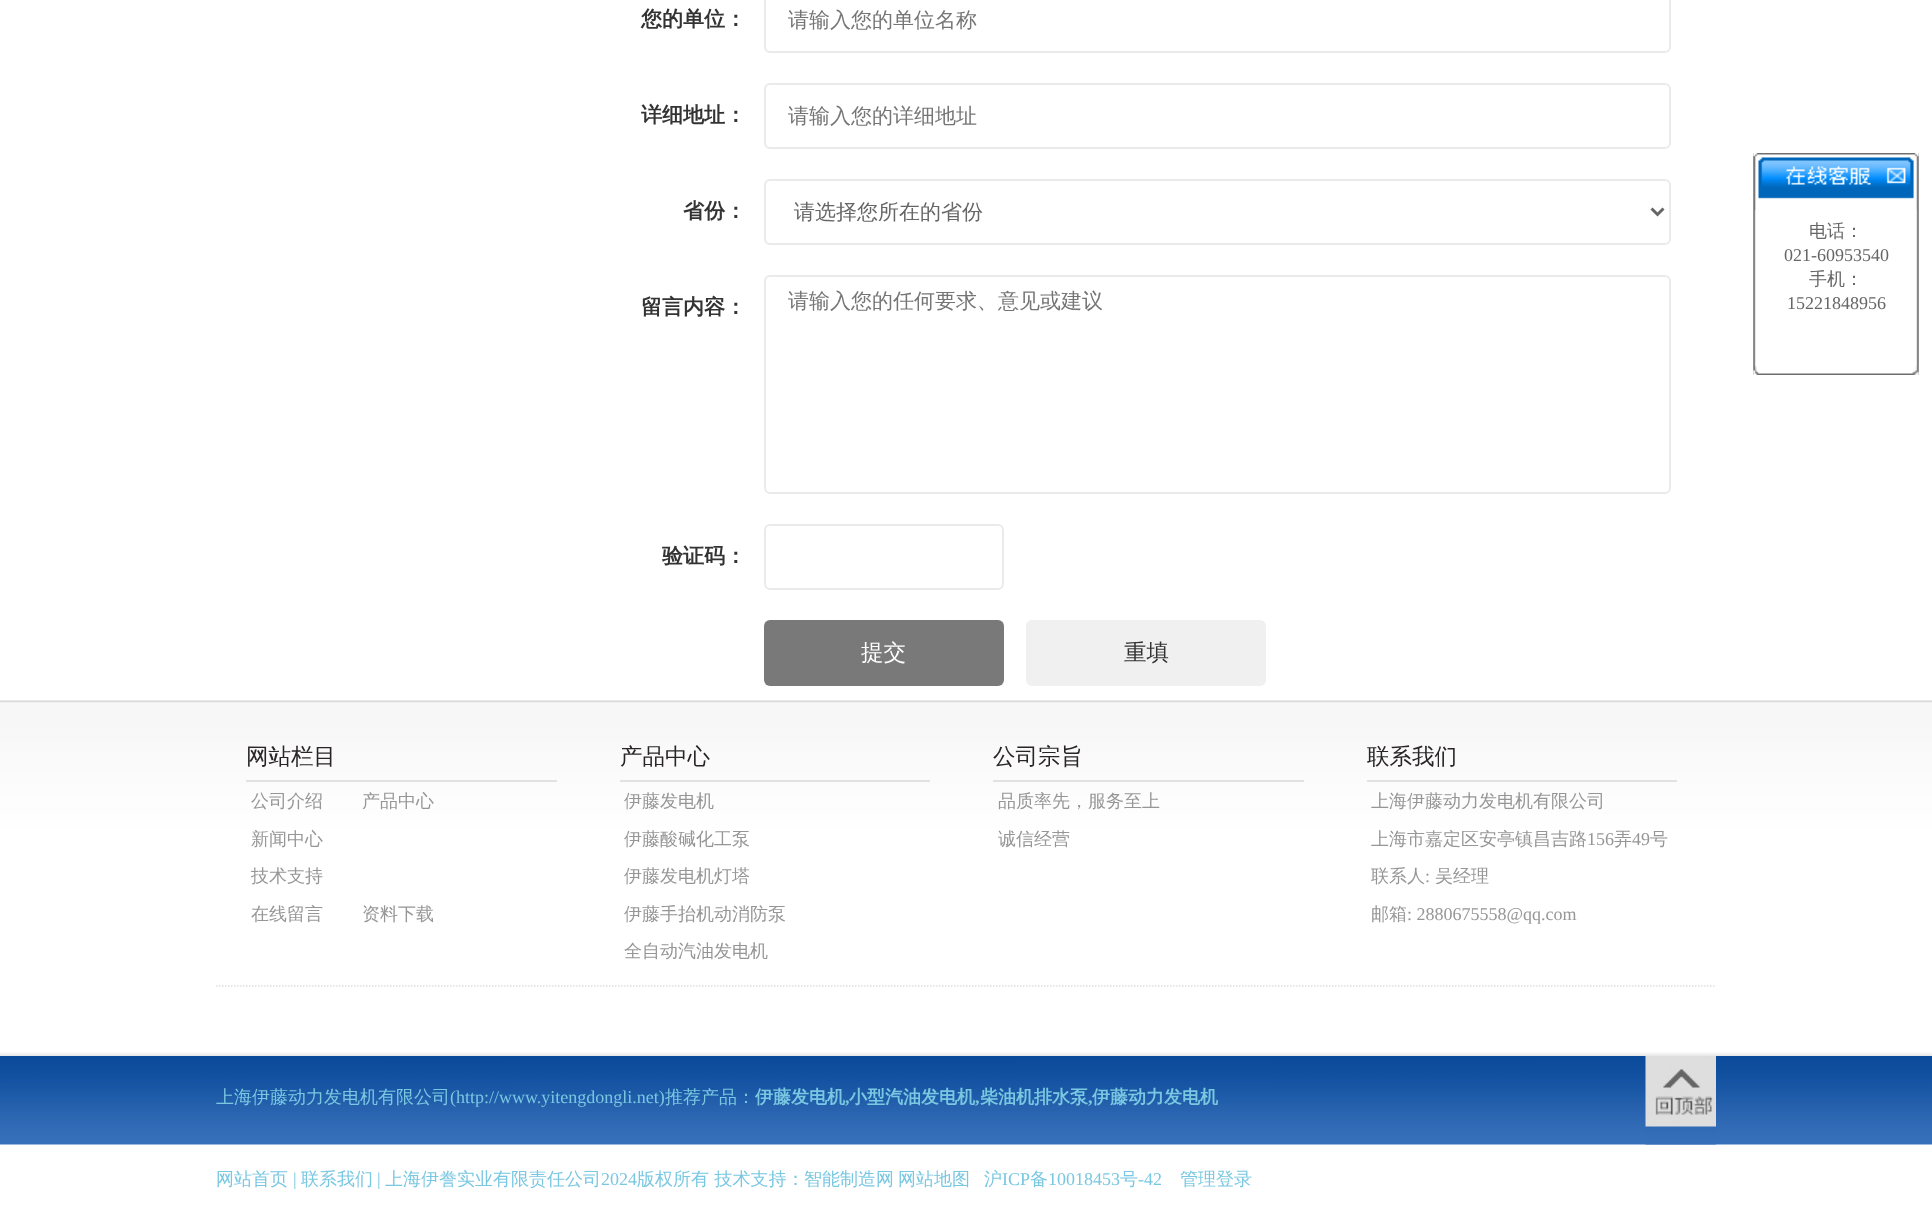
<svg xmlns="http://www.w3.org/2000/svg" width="1932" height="1221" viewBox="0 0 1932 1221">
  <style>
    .t1 { font: bold 21px WenQuanYi Zen Hei; fill: #333; }
    .t2 { font: 500 21px WenQuanYi Zen Hei; fill: #757575; }
    .t3 { font: 500 21px WenQuanYi Zen Hei; fill: #666; }
    .t4 { font: 500 22.5px WenQuanYi Zen Hei; fill: #fff; }
    .t5 { font: 500 22.5px WenQuanYi Zen Hei; fill: #333; }
    .t6 { font: 500 18px WenQuanYi Zen Hei; fill: #666; }
    .t7 { font: 18px Liberation Serif; fill: #666; }
    .t8 { font: 500 22.5px WenQuanYi Zen Hei; fill: #292526; }
    .t9 { font: 500 18px WenQuanYi Zen Hei; fill: #969696; }
    .t10 { font: 18px Liberation Serif; fill: #969696; }
    .t11 { font: 500 18px WenQuanYi Zen Hei; fill: #7ac7e1; }
    .t12 { font: 18px Liberation Serif; fill: #7ac7e1; }
    .t13 { font: bold 18px WenQuanYi Zen Hei; fill: #7ac7e1; }
    .t14 { font: bold 18px Liberation Serif; fill: #7ac7e1; }
  </style>
  <rect width="100%" height="100%" fill="#fff"/>
  <text x="641" y="26" class="t1">您的单位：</text>
  <rect x="765" y="-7" width="905" height="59" rx="5" fill="none" stroke="#eaeaea" stroke-width="2"/>
  <text x="788" y="27" class="t2">请输入您的单位名称</text>
  <text x="641" y="122" class="t1">详细地址：</text>
  <rect x="765" y="84" width="905" height="64" rx="5" fill="none" stroke="#eaeaea" stroke-width="2"/>
  <text x="788" y="123" class="t2">请输入您的详细地址</text>
  <text x="683" y="218" class="t1">省份：</text>
  <rect x="765" y="180" width="905" height="64" rx="5" fill="none" stroke="#eaeaea" stroke-width="2"/>
  <path d="M1651.5 208.5L1657.5 214.5L1663.5 208.5" fill="none" stroke="#666" stroke-width="3"/>
  <text x="794" y="219" class="t3">请选择您所在的省份</text>
  <text x="641" y="314" class="t1">留言内容：</text>
  <rect x="765" y="276" width="905" height="217" rx="5" fill="none" stroke="#eaeaea" stroke-width="2"/>
  <text x="788" y="308" class="t2">请输入您的任何要求、意见或建议</text>
  <text x="662" y="563" class="t1">验证码：</text>
  <rect x="765" y="525" width="238" height="64" rx="5" fill="none" stroke="#eaeaea" stroke-width="2"/>
  <rect x="764" y="620" width="240" height="66" rx="6" fill="#797979"/>
  <text x="861" y="660" class="t4">提交</text>
  <rect x="1026" y="620" width="240" height="66" rx="6" fill="#f0f0f0"/>
  <text x="1124" y="660" class="t5">重填</text>
  <image x="1753" y="153" width="166" height="57" href="images/1.png"/>
  <image x="1753" y="153" width="166" height="57" href="images/2.png"/>
  <image x="1753" y="210" width="166" height="156" href="images/3.png"/>
  <text x="1809" y="237" class="t6">电话：</text>
  <text x="1784" y="261" class="t7">021-60953540</text>
  <text x="1809" y="285" class="t6">手机：</text>
  <text x="1787" y="309" class="t7">15221848956</text>
  <image x="1753" y="366" width="166" height="9" href="images/4.png"/>
  <image x="1753" y="366" width="166" height="9" href="images/5.png"/>
  <image x="0" y="700" width="1932" height="356" href="images/6.png"/>
  <path d="M216 986H1716" fill="none" stroke="#dedede" stroke-width="1.5" stroke-dasharray="1.5 1.5"/>
  <rect x="246" y="780" width="311" height="2" fill="#e2e2e2"/>
  <text x="246" y="764" class="t8">网站栏目</text>
  <text x="251" y="807" class="t9">公司介绍</text>
  <text x="362" y="807" class="t9">产品中心</text>
  <text x="251" y="845" class="t9">新闻中心</text>
  <text x="251" y="882" class="t9">技术支持</text>
  <text x="251" y="920" class="t9">在线留言</text>
  <text x="362" y="920" class="t9">资料下载</text>
  <rect x="620" y="780" width="310" height="2" fill="#e2e2e2"/>
  <text x="620" y="764" class="t8">产品中心</text>
  <text x="624" y="807" class="t9">伊藤发电机</text>
  <text x="624" y="845" class="t9">伊藤酸碱化工泵</text>
  <text x="624" y="882" class="t9">伊藤发电机灯塔</text>
  <text x="624" y="920" class="t9">伊藤手抬机动消防泵</text>
  <text x="624" y="957" class="t9">全自动汽油发电机</text>
  <rect x="993" y="780" width="311" height="2" fill="#e2e2e2"/>
  <text x="993" y="764" class="t8">公司宗旨</text>
  <text x="998" y="807" class="t9">品质率先，服务至上</text>
  <text x="998" y="845" class="t9">诚信经营</text>
  <rect x="1367" y="780" width="310" height="2" fill="#e2e2e2"/>
  <text x="1367" y="764" class="t8">联系我们</text>
  <text x="1371" y="807" class="t9">上海伊藤动力发电机有限公司</text>
  <text x="1371" y="845" class="t9">上海市嘉定区安亭镇昌吉路</text>
  <text x="1587" y="845" class="t10">156</text>
  <text x="1614" y="845" class="t9">弄</text>
  <text x="1632" y="845" class="t10">49</text>
  <text x="1650" y="845" class="t9">号</text>
  <text x="1371" y="882" class="t9">联系人</text>
  <text x="1425" y="882" class="t10">:</text>
  <text x="1435" y="882" class="t9">吴经理</text>
  <text x="1371" y="920" class="t9">邮箱</text>
  <text x="1407" y="920" class="t10">: 2880675558@qq.com</text>
  <image x="0" y="1056" width="1932" height="89" href="images/7.png"/>
  <text x="216" y="1103" class="t11">上海伊藤动力发电机有限公司</text>
  <text x="450" y="1103" class="t12">(http://www.yitengdongli.net)</text>
  <text x="665" y="1103" class="t11">推荐产品：</text>
  <text x="755" y="1103" class="t13">伊藤发电机</text>
  <text x="845" y="1103" class="t14">,</text>
  <text x="849" y="1103" class="t13">小型汽油发电机</text>
  <text x="975" y="1103" class="t14">,</text>
  <text x="980" y="1103" class="t13">柴油机排水泵</text>
  <text x="1088" y="1103" class="t14">,</text>
  <text x="1092" y="1103" class="t13">伊藤动力发电机</text>
  <text x="216" y="1185" class="t11">网站首页</text>
  <text x="293" y="1185" class="t12">|</text>
  <text x="301" y="1185" class="t11">联系我们</text>
  <text x="377" y="1185" class="t12">|</text>
  <text x="385" y="1185" class="t11">上海伊誊实业有限责任公司</text>
  <text x="601" y="1185" class="t12">2024</text>
  <text x="637" y="1185" class="t11">版权所有 技术支持：</text>
  <text x="804" y="1185" class="t11">智能制造网</text>
  <text x="898" y="1185" class="t11">网站地图</text>
  <text x="984" y="1185" class="t11">沪</text>
  <text x="1002" y="1185" class="t12">ICP</text>
  <text x="1030" y="1185" class="t11">备</text>
  <text x="1048" y="1185" class="t12">10018453</text>
  <text x="1120" y="1185" class="t11">号</text>
  <text x="1138" y="1185" class="t12">-42</text>
  <text x="1180" y="1185" class="t11">管理登录</text>
  <image x="1645" y="1056" width="71" height="89" href="images/8.png"/>
</svg>
